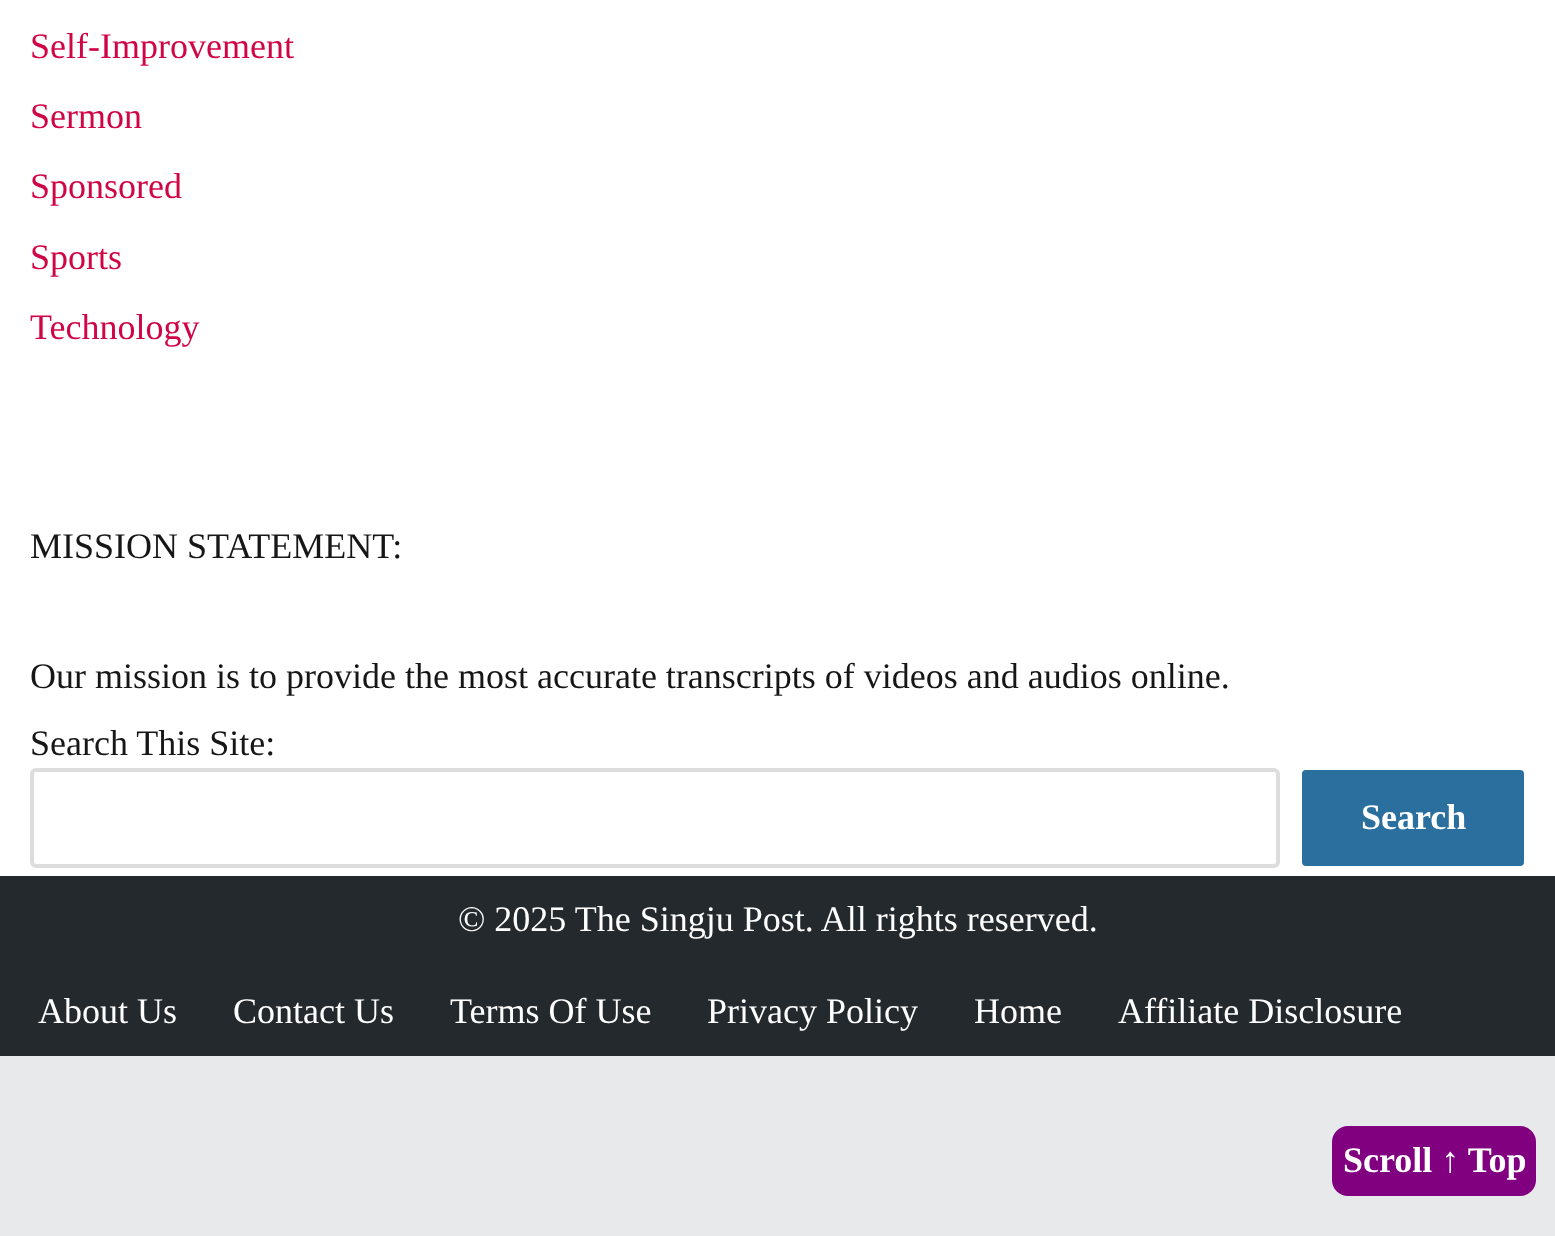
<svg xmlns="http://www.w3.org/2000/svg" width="1555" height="1236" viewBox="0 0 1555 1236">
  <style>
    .t1 { font: 36px Liberation Serif; fill: #d00545; }
    .t2 { font: 36px Liberation Serif; fill: #161616; }
    .t3 { font: bold 36px Liberation Serif; fill: #fff; }
    .t4 { font: 36px Liberation Serif; fill: #fff; }
  </style>
  <rect width="100%" height="100%" fill="#fff"/>
  <text x="30" y="58" class="t1">Self-Improvement</text>
  <text x="30" y="128" class="t1">Sermon</text>
  <text x="30" y="198" class="t1">Sponsored</text>
  <text x="30" y="269" class="t1">Sports</text>
  <text x="30" y="339" class="t1">Technology</text>
  <text x="30" y="558" class="t2">MISSION STATEMENT:</text>
  <text x="30" y="688" class="t2">Our mission is to provide the most accurate transcripts of videos and audios online.</text>
  <text x="30" y="755" class="t2">Search This Site:</text>
  <rect x="32" y="770" width="1246" height="96" rx="4" fill="none" stroke="#ddd" stroke-width="4"/>
  <rect x="1301" y="769" width="224" height="98" rx="5" fill="#2b6f9e" stroke="#fff" stroke-width="2"/>
  <text x="1361" y="829" class="t3">Search</text>
  <rect x="0" y="876" width="1555" height="180" fill="#24292e"/>
  <text x="458" y="931" class="t4">© 2025 The Singju Post. All rights reserved.</text>
  <text x="38" y="1023" class="t4">About Us</text>
  <text x="233" y="1023" class="t4">Contact Us</text>
  <text x="450" y="1023" class="t4">Terms Of Use</text>
  <text x="707" y="1023" class="t4">Privacy Policy</text>
  <text x="974" y="1023" class="t4">Home</text>
  <text x="1118" y="1023" class="t4">Affiliate Disclosure</text>
  <rect x="0" y="1056" width="1555" height="180" fill="#e8e9eb"/>
  <rect x="1332" y="1126" width="204" height="70" rx="16" fill="#800080"/>
  <text x="1343" y="1172" class="t3">Scroll ↑ Top</text>
</svg>
